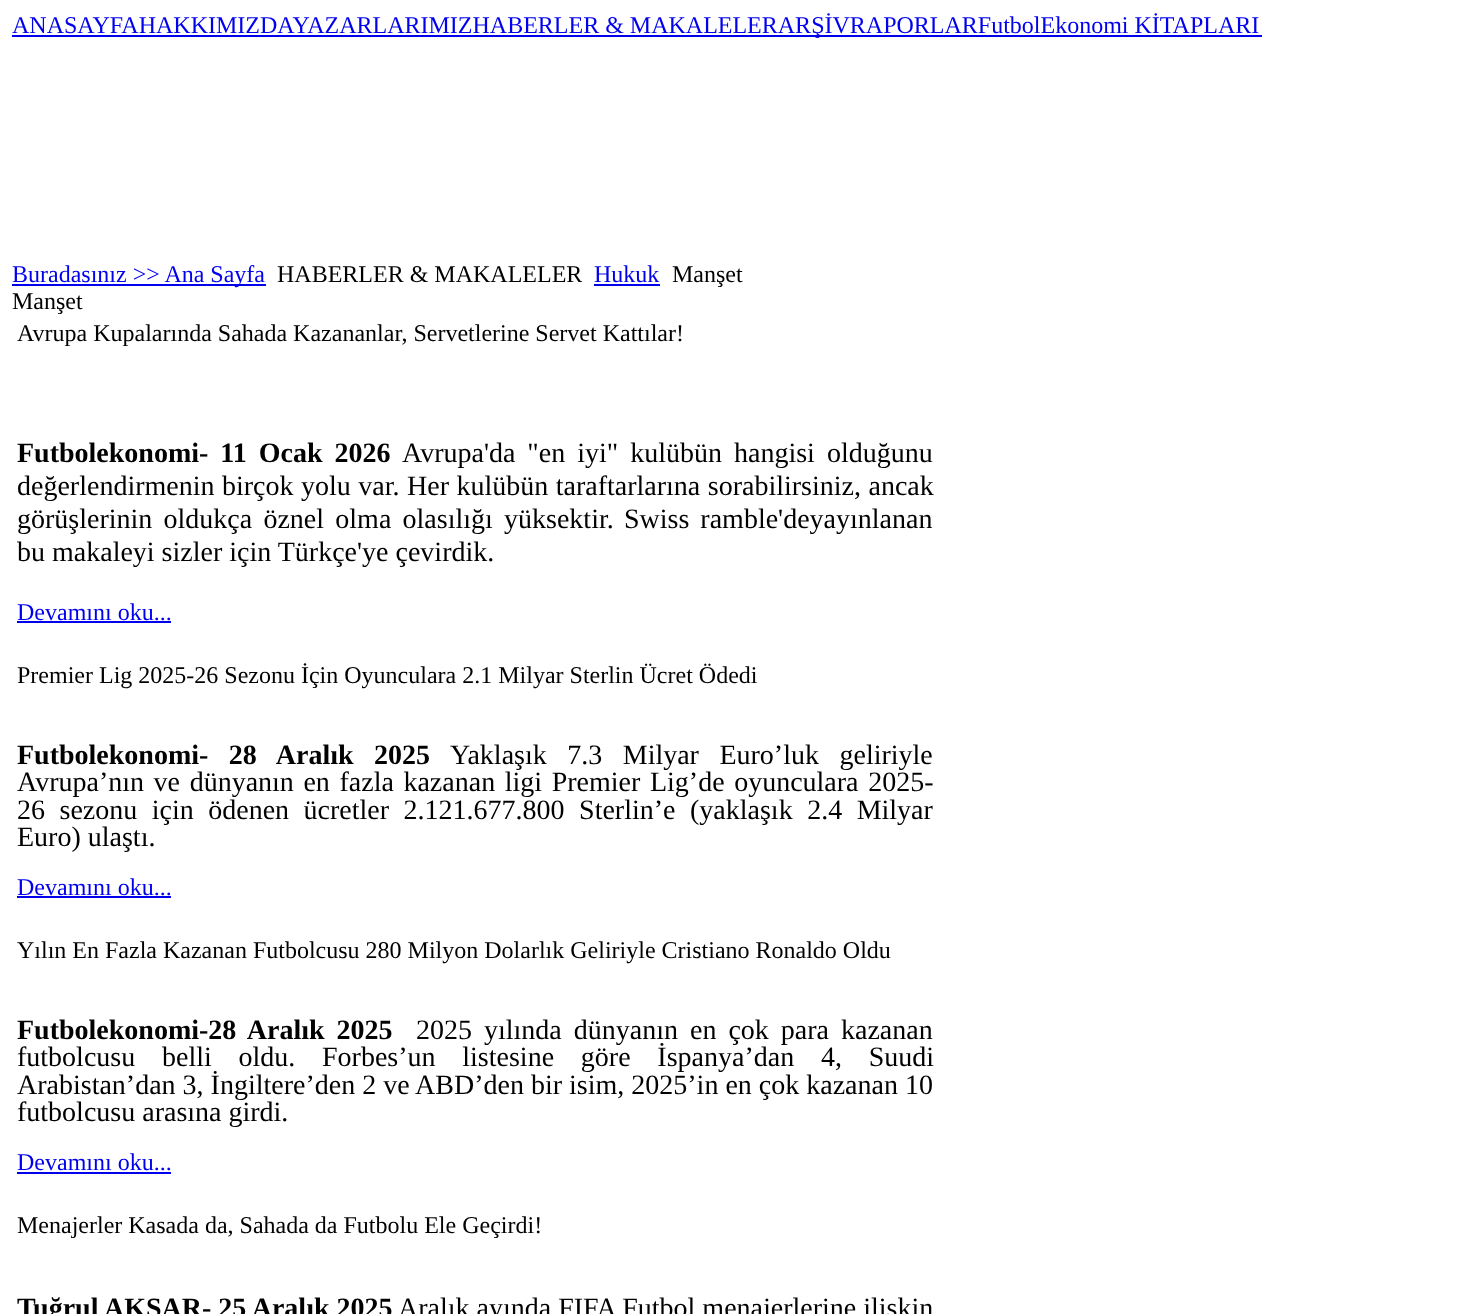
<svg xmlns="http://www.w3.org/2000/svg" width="1460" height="1314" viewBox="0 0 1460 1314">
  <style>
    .t1 { font: 24px Liberation Serif; fill: #00e; }
    .t2 { font: 24px Liberation Serif; fill: #000; }
    .t3 { font: bold 28px Liberation Serif; fill: #000; }
    .t4 { font: 28px Liberation Serif; fill: #000; }
  </style>
  <rect width="100%" height="100%" fill="#fff"/>
  <rect x="12" y="35" width="968" height="2" fill="#00e"/>
  <text x="12" y="33" class="t1">ANASAYFAHAKKIMIZDAYAZARLARIMIZHABERLER &amp; MAKALELERARŞİVRAPORLARFutbolEkonomi KİTAPLARI</text>
  <rect x="980" y="35" width="282" height="2" fill="#00e"/>
  <rect x="12" y="284" width="254" height="2" fill="#00e"/>
  <text x="12" y="282" class="t1">Buradasınız &gt;&gt; Ana Sayfa</text>
  <text x="277" y="282" class="t2">HABERLER &amp; MAKALELER</text>
  <text x="594" y="282" class="t1">Hukuk</text>
  <rect x="594" y="284" width="66" height="2" fill="#00e"/>
  <text x="672" y="282" class="t2">Manşet</text>
  <text x="12" y="309" class="t2">Manşet</text>
  <text x="17" y="341" class="t2">Avrupa Kupalarında Sahada Kazananlar, Servetlerine Servet Kattılar!</text>
  <text x="17" y="462" word-spacing="5" class="t3">Futbolekonomi- 11 Ocak 2026</text>
  <text x="402" y="462" word-spacing="5" class="t4">Avrupa'da "en iyi" kulübün hangisi olduğunu</text>
  <text x="17" y="495" word-spacing="0.5" class="t4">değerlendirmenin birçok yolu var. Her kulübün taraftarlarına sorabilirsiniz, ancak</text>
  <text x="17" y="528" word-spacing="4.25" class="t4">görüşlerinin oldukça öznel olma olasılığı yüksektir.</text>
  <text x="624" y="528" word-spacing="4" class="t4">Swiss ramble'deyayınlanan</text>
  <text x="17" y="561" class="t4">bu makaleyi sizler için Türkçe'ye çevirdik.</text>
  <text x="17" y="620" class="t1">Devamını oku...</text>
  <rect x="17" y="621" width="154" height="2" fill="#00e"/>
  <text x="17" y="683" class="t2">Premier Lig 2025-26 Sezonu İçin Oyunculara 2.1 Milyar Sterlin Ücret Ödedi</text>
  <text x="17" y="764" word-spacing="13.5" class="t3">Futbolekonomi- 28 Aralık 2025</text>
  <text x="450" y="764" word-spacing="13.5" class="t4">Yaklaşık 7.3 Milyar Euro’luk geliriyle</text>
  <text x="17" y="791" word-spacing="2.6" class="t4">Avrupa’nın ve dünyanın en fazla kazanan ligi Premier Lig’de oyunculara 2025-</text>
  <text x="17" y="819" word-spacing="7.5" class="t4">26 sezonu için ödenen ücretler 2.121.677.800 Sterlin’e (yaklaşık 2.4 Milyar</text>
  <text x="17" y="846" class="t4">Euro) ulaştı.</text>
  <text x="17" y="895" class="t1">Devamını oku...</text>
  <rect x="17" y="896" width="154" height="2" fill="#00e"/>
  <text x="17" y="958" class="t2">Yılın En Fazla Kazanan Futbolcusu 280 Milyon Dolarlık Geliriyle Cristiano Ronaldo Oldu</text>
  <text x="17" y="1039" word-spacing="5" class="t3">Futbolekonomi-28 Aralık 2025</text>
  <text x="416" y="1039" word-spacing="5" class="t4">2025 yılında dünyanın en çok para kazanan</text>
  <text x="17" y="1066" word-spacing="19.75" class="t4">futbolcusu belli oldu. Forbes’un listesine göre İspanya’dan 4, Suudi</text>
  <text x="17" y="1094" class="t4">Arabistan’dan 3, İngiltere’den 2 ve ABD’den bir isim, 2025’in en çok kazanan 10</text>
  <text x="17" y="1121" class="t4">futbolcusu arasına girdi.</text>
  <text x="17" y="1170" class="t1">Devamını oku...</text>
  <rect x="17" y="1172" width="154" height="2" fill="#00e"/>
  <text x="17" y="1233" class="t2">Menajerler Kasada da, Sahada da Futbolu Ele Geçirdi!</text>
  <text x="17" y="1317" class="t3">Tuğrul AKŞAR- 25 Aralık 2025</text>
  <text x="398" y="1317" class="t4">Aralık ayında FIFA Futbol menajerlerine ilişkin</text>
</svg>
